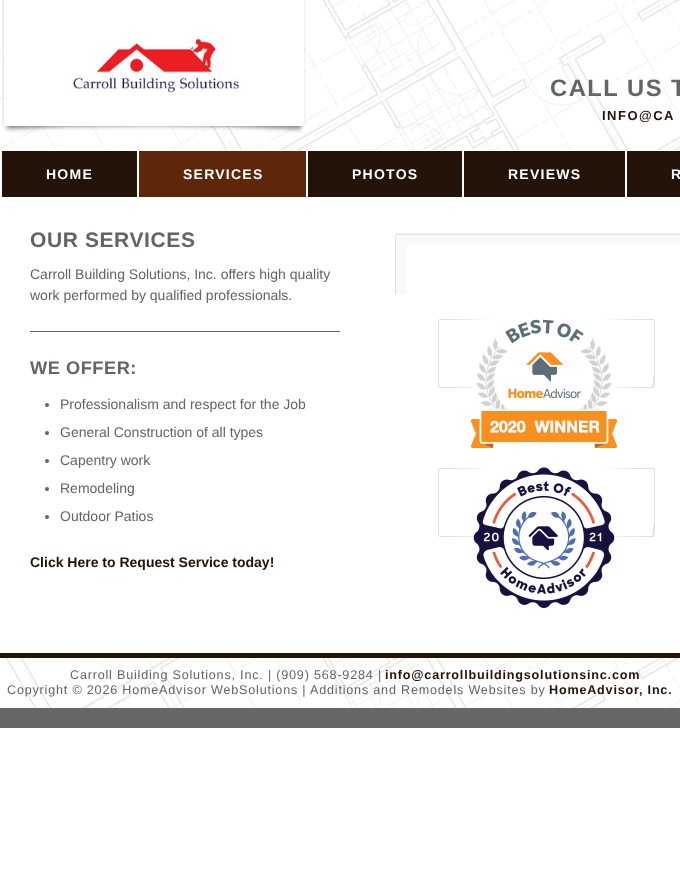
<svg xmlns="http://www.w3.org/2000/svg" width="680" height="891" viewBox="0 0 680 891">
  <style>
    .t1 { font: bold 23.75px Liberation Sans; letter-spacing: 1.5px; fill: #616564; }
    .t2 { font: bold 13px Liberation Sans; letter-spacing: 1.5px; fill: #241308; }
    .t3 { font: bold 14px Liberation Sans; letter-spacing: 1.25px; fill: #fff; }
    .t4 { font: bold 21px Liberation Sans; letter-spacing: 0.6px; fill: #616564; }
    .t5 { font: 14px Liberation Sans; fill: #616564; }
    .t6 { font: bold 18.25px Liberation Sans; letter-spacing: 0.5px; fill: #616564; }
    .t7 { font: bold 14px Liberation Sans; fill: #241308; }
    .t8 { font: 12.6px Liberation Sans; letter-spacing: 0.8px; fill: #616564; }
    .t9 { font: bold 12.6px Liberation Sans; letter-spacing: 0.8px; fill: #241308; }
  </style>
  <rect width="100%" height="100%" fill="#fff"/>
  <image x="0" y="0" width="680" height="150" href="images/1.png"/>
  <image x="1" y="0" width="305" height="133" href="images/2.png"/>
  <image x="70" y="37" width="170" height="57" href="images/3.png"/>
  <text x="550" y="96" class="t1">CALL US T</text>
  <text x="602" y="120" class="t2">INFO@CA</text>
  <rect x="2" y="151" width="678" height="46" fill="#241308"/>
  <rect x="137" y="151" width="2" height="46" fill="#fff"/>
  <text x="46" y="179" class="t3">HOME</text>
  <rect x="139" y="151" width="167" height="46" fill="#5e270c"/>
  <rect x="306" y="151" width="2" height="46" fill="#fff"/>
  <text x="183" y="179" class="t3">SERVICES</text>
  <rect x="462" y="151" width="2" height="46" fill="#fff"/>
  <text x="352" y="179" class="t3">PHOTOS</text>
  <rect x="625" y="151" width="2" height="46" fill="#fff"/>
  <text x="508" y="179" class="t3">REVIEWS</text>
  <text x="671" y="179" class="t3">R</text>
  <text x="30" y="247" class="t4">OUR SERVICES</text>
  <text x="30" y="279" class="t5">Carroll Building Solutions, Inc. offers high quality</text>
  <text x="30" y="300" class="t5">work performed by qualified professionals.</text>
  <rect x="30" y="331" width="310" height="1" fill="#646665"/>
  <text x="30" y="374" class="t6">WE OFFER:</text>
  <circle cx="47" cy="405" r="2" fill="#616564"/>
  <text x="60" y="409" class="t5">Professionalism and respect for the Job</text>
  <circle cx="47" cy="433" r="2" fill="#616564"/>
  <text x="60" y="437" class="t5">General Construction of all types</text>
  <circle cx="47" cy="461" r="2" fill="#616564"/>
  <text x="60" y="465" class="t5">Capentry work</text>
  <circle cx="47" cy="489" r="2" fill="#616564"/>
  <text x="60" y="493" class="t5">Remodeling</text>
  <circle cx="47" cy="517" r="2" fill="#616564"/>
  <text x="60" y="521" class="t5">Outdoor Patios</text>
  <text x="30" y="567" class="t7">Click Here to Request Service today!</text>
  <image x="395" y="233" width="285" height="61" href="images/4.png"/>
  <image x="438" y="319" width="217" height="69" href="images/5.png"/>
  <image x="471" y="319" width="146" height="129" href="images/6.png"/>
  <image x="438" y="468" width="217" height="69" href="images/5.png"/>
  <image x="473" y="467" width="142" height="141" href="images/7.png"/>
  <image x="0" y="658" width="680" height="50" href="images/8.png"/>
  <rect x="0" y="653" width="680" height="5" fill="#241308"/>
  <rect x="0" y="708" width="680" height="20" fill="#666"/>
  <text x="70" y="679" class="t8">Carroll Building Solutions, Inc. | (909) 568-9284 |</text>
  <text x="385" y="679" class="t9">info@carrollbuildingsolutionsinc.com</text>
  <text x="7" y="694" class="t8">Copyright © 2026 HomeAdvisor WebSolutions |</text>
  <text x="310" y="694" class="t8">Additions and Remodels Websites by</text>
  <text x="549" y="694" class="t9">HomeAdvisor, Inc.</text>
</svg>
